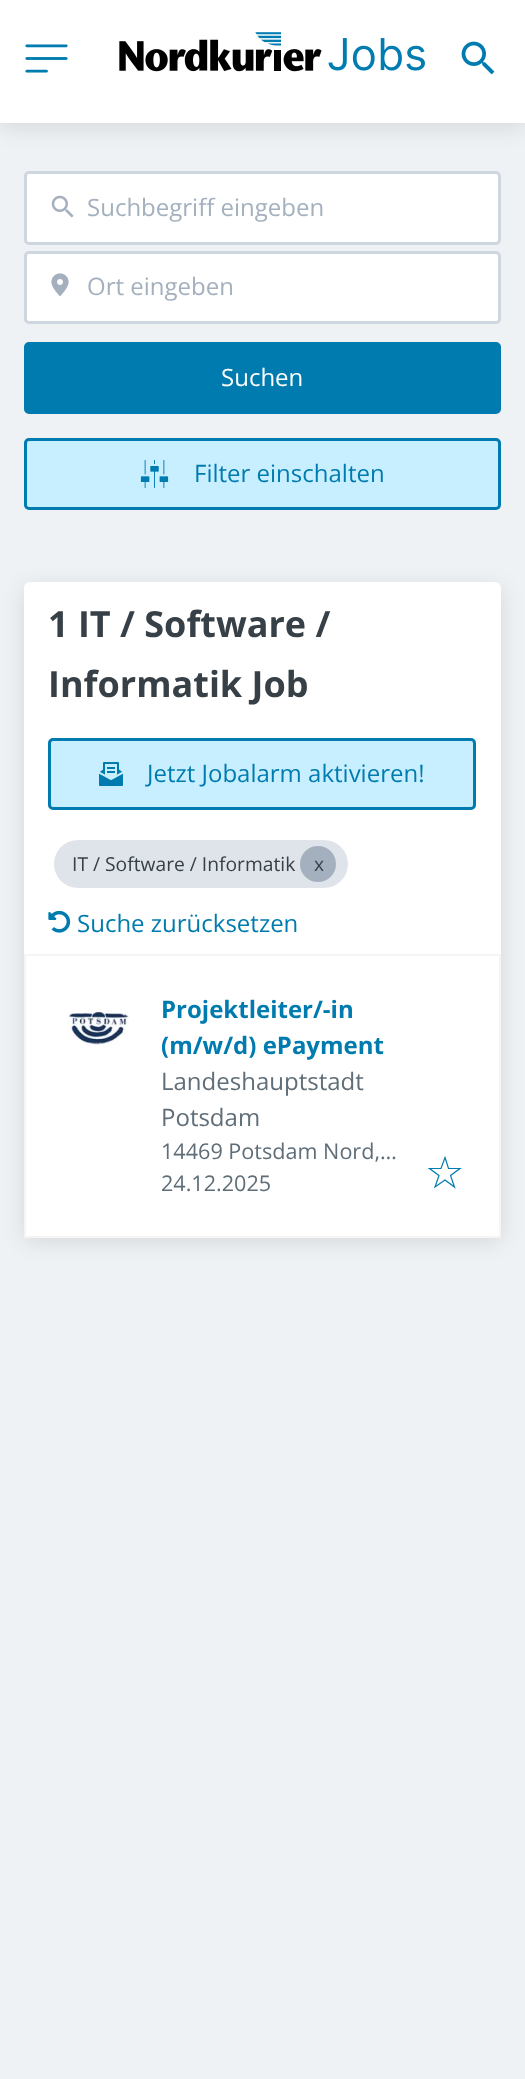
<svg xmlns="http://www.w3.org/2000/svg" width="525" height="2079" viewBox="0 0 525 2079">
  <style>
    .t1 { font: 24px Open Sans; fill: #a4b0be; }
    .t2 { font: 24px Open Sans; fill: #fff; }
    .t3 { font: 24px Open Sans; fill: #007baf; }
    .t4 { font: bold 36px Open Sans; fill: #374047; }
    .t5 { font: 19.25px Open Sans; fill: #374047; }
    .t6 { font: bold 24px Open Sans; fill: #007baf; }
    .t7 { font: 24px Open Sans; fill: #5f6e78; }
    .t8 { font: 21.6px Open Sans; fill: #5f6e78; }
  </style>
  <rect width="100%" height="100%" fill="#eff2f4"/>
  <rect x="0" y="5" width="525" height="123" fill="#0000001a" filter="blur(11px)"/>
  <rect x="0" y="0" width="525" height="123" fill="#fff"/>
  <image x="25" y="44" width="43" height="29" href="images/1.png"/>
  <image x="119" y="32" width="306" height="40" href="images/2.png"/>
  <image x="461" y="41" width="34" height="34" href="images/3.png"/>
  <rect x="25.5" y="172.5" width="474" height="71" rx="3.5" fill="#fff" stroke="#ced7e0" stroke-width="3"/>
  <image x="51" y="195" width="23" height="23" href="images/4.png"/>
  <text x="87" y="216" class="t1">Suchbegriff eingeben</text>
  <rect x="25.5" y="252.5" width="474" height="70" rx="3.5" fill="#fff" stroke="#ced7e0" stroke-width="3"/>
  <image x="51" y="273" width="18" height="24" href="images/5.png"/>
  <text x="87" y="295" class="t1">Ort eingeben</text>
  <rect x="25.5" y="343.5" width="474" height="69" rx="3.5" fill="#007baf" stroke="#007baf" stroke-width="3"/>
  <text x="221" y="386" class="t2">Suchen</text>
  <rect x="25.5" y="439.5" width="474" height="69" rx="3.5" fill="#c8efff" stroke="#007baf" stroke-width="3"/>
  <image x="140" y="460" width="29" height="28" href="images/6.png"/>
  <text x="194" y="482" class="t3">Filter einschalten</text>
  <rect x="24" y="587" width="477" height="655" rx="6" fill="#0000001a" filter="blur(11px)"/>
  <rect x="24" y="582" width="477" height="656" rx="6" fill="#fff"/>
  <text x="48" y="637" class="t4">1 IT / Software /</text>
  <text x="48" y="697" class="t4">Informatik Job</text>
  <rect x="49.5" y="739.5" width="425" height="69" rx="3.5" fill="#c8efff" stroke="#007baf" stroke-width="3"/>
  <image x="99" y="762" width="24" height="24" href="images/7.png"/>
  <text x="147" y="782" class="t3">Jetzt Jobalarm aktivieren!</text>
  <rect x="54" y="840" width="294" height="48" rx="24" fill="#dfe4ea"/>
  <text x="72" y="871" class="t5">IT / Software / Informatik</text>
  <circle cx="318" cy="864" r="18" fill="#a4b0be"/>
  <text x="314" y="871" class="t5">x</text>
  <image x="48" y="911" width="23" height="22" href="images/8.png"/>
  <text x="77" y="932" class="t3">Suche zurücksetzen</text>
  <rect x="25" y="955" width="475" height="282" fill="none" stroke="#f5f5f5" stroke-width="2"/>
  <image x="67" y="1010" width="62" height="35" href="images/9.png"/>
  <text x="161" y="1018" class="t6">Projektleiter/-in</text>
  <text x="161" y="1054" class="t6">(m/w/d) ePayment</text>
  <text x="161" y="1090" class="t7">Landeshauptstadt</text>
  <text x="161" y="1126" class="t7">Potsdam</text>
  <text x="161" y="1159" class="t8">14469 Potsdam Nord,…</text>
  <text x="161" y="1191" class="t8">24.12.2025</text>
  <path d="M445 1157.5L448.5 1168.5H460L450.5 1175.5L454.5 1187L445 1180L435 1187L439 1175.5L429.5 1168.5H441Z" fill="none" stroke="#007baf" stroke-width="1.2" stroke-linecap="square"/>
</svg>
